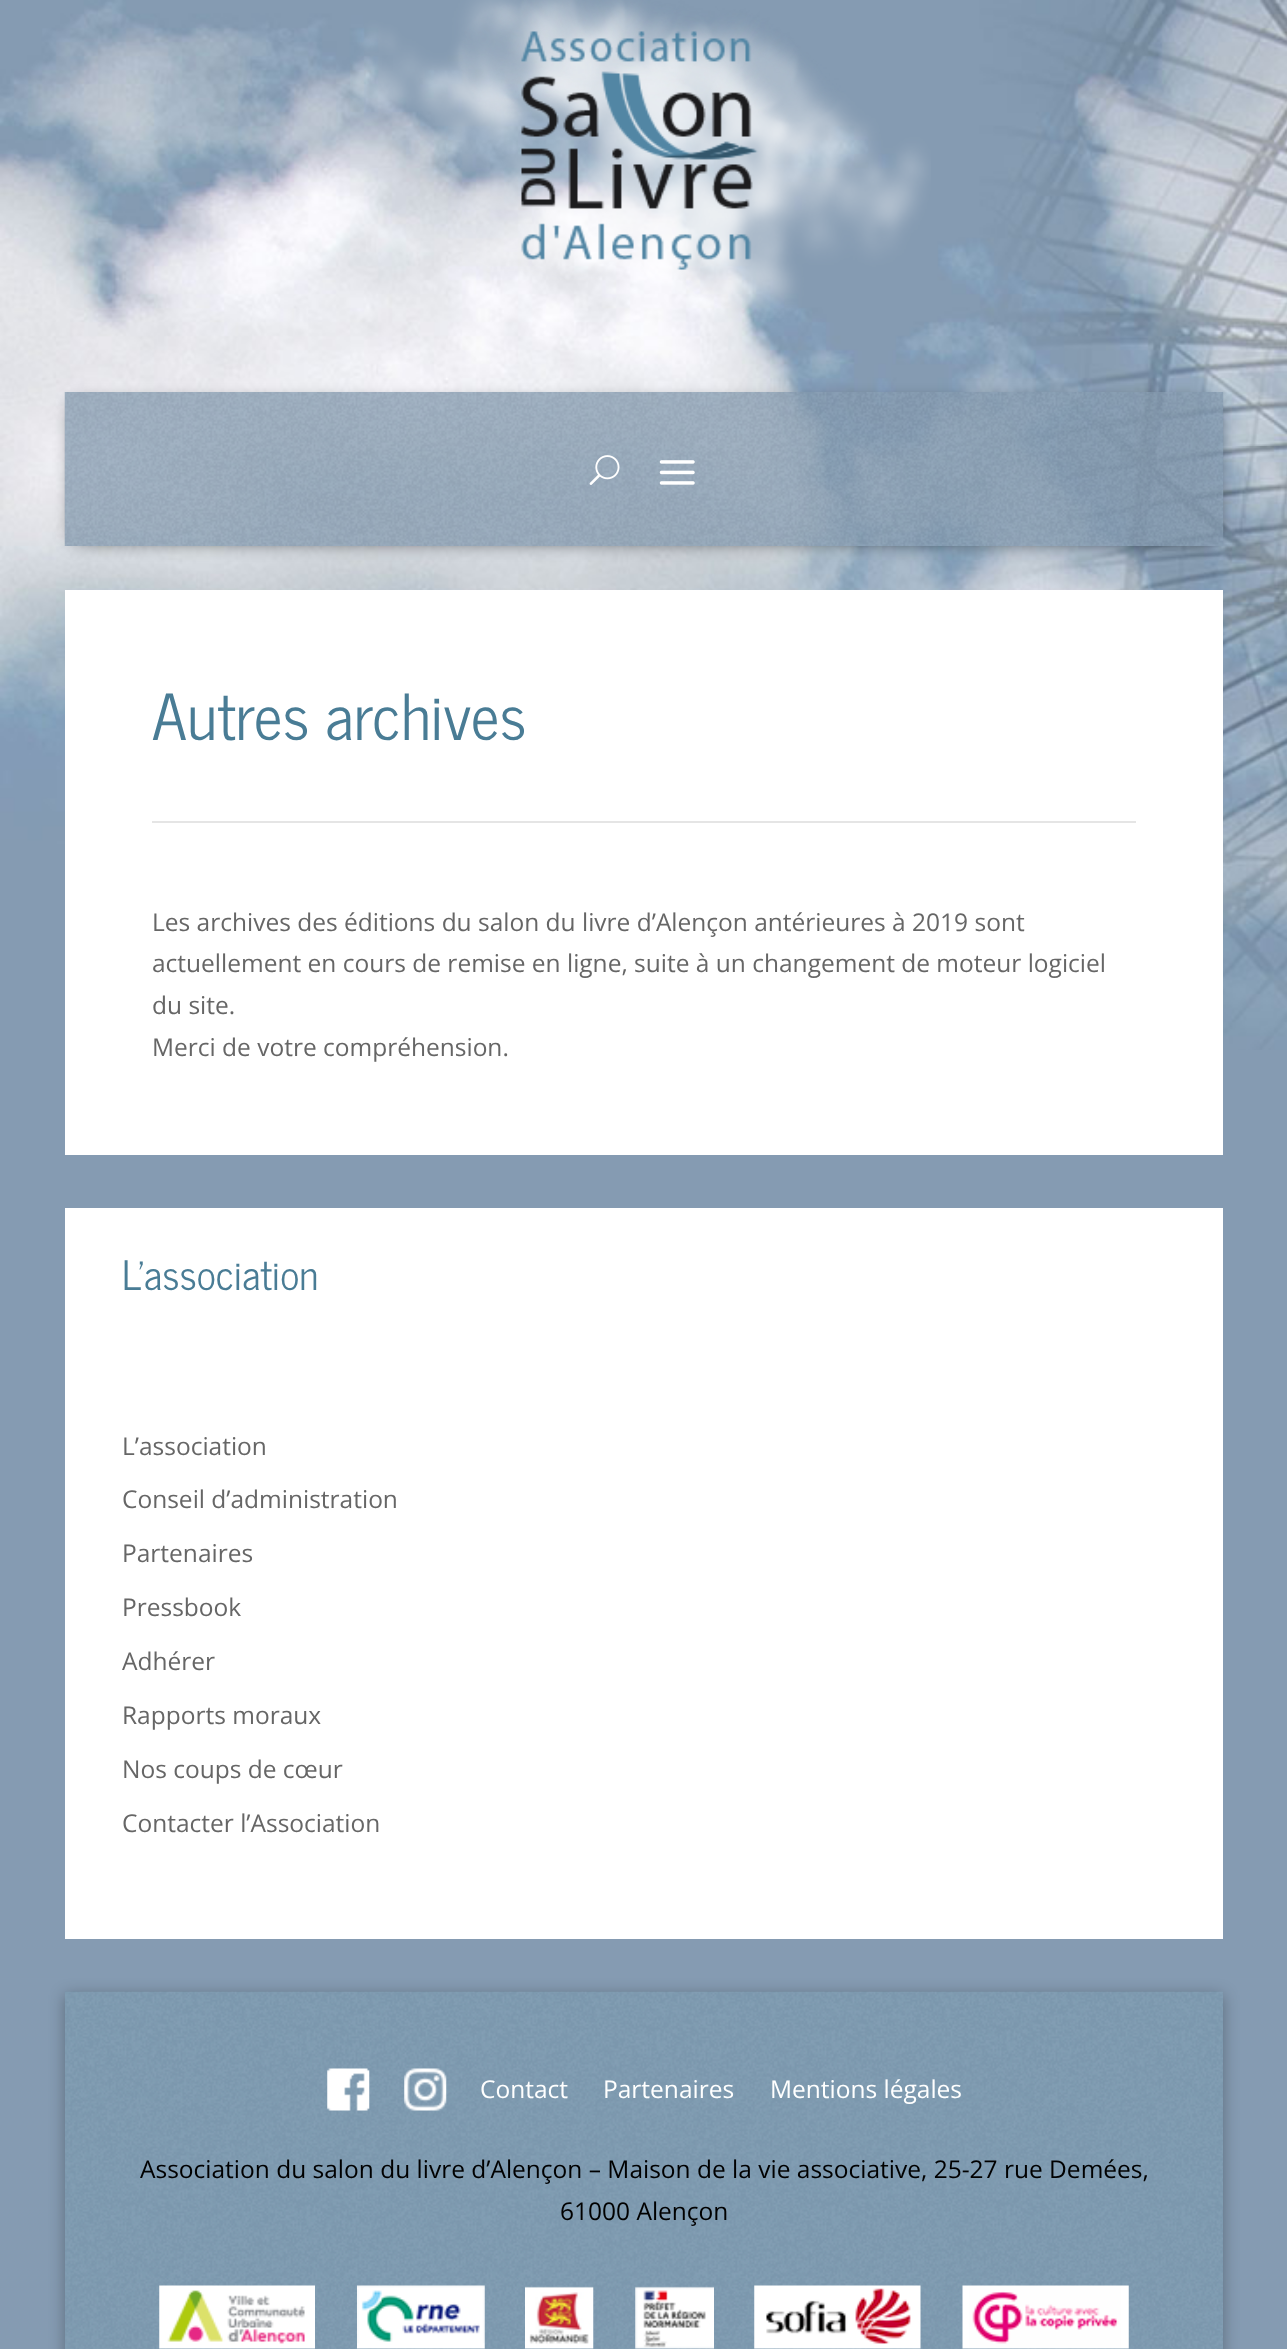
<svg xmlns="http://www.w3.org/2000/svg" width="1287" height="2349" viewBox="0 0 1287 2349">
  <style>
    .t1 { font: 63px News Cycle; fill: #497c95; }
    .t2 { font: 24.5px Open Sans; fill: #666; }
    .t3 { font: 40.25px News Cycle; fill: #497c95; }
    .t4 { font: 24.5px Open Sans; fill: #fff; }
    .t5 { font: 24.5px Open Sans; fill: #000; }
  </style>
  <defs>
    <clipPath id="clip1"><path d="M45 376H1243V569H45ZM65 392H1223V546H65Z" clip-rule="evenodd"/></clipPath>
    <clipPath id="clip2"><path d="M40 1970H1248V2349H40ZM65 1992H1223V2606H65Z" clip-rule="evenodd"/></clipPath>
  </defs>
  <rect width="100%" height="100%" fill="#859bb2"/>
  <image x="0" y="0" width="1287" height="1050" href="images/1.png"/>
  <image x="350" y="0" width="581" height="318" href="images/2.png"/>
  <g clip-path="url(#clip1)">
    <rect x="75" y="406" width="1138" height="133" fill="#000000d9" filter="blur(9.5px)"/>
  </g>
  <image x="64" y="392" width="1160" height="154" href="images/3.png"/>
  <image x="589" y="455" width="31" height="30" href="images/4.png"/>
  <image x="659" y="460" width="36" height="25" href="images/5.png"/>
  <rect x="65" y="590" width="1158" height="565" fill="#fff"/>
  <text x="152" y="740" class="t1">Autres archives</text>
  <rect x="152" y="821" width="984" height="2" fill="#e5e5e5"/>
  <text x="152" y="931" class="t2">Les archives des éditions du salon du livre d’Alençon antérieures à 2019 sont</text>
  <text x="152" y="972" class="t2">actuellement en cours de remise en ligne, suite à un changement de moteur logiciel</text>
  <text x="152" y="1014" class="t2">du site.</text>
  <text x="152" y="1056" class="t2">Merci de votre compréhension.</text>
  <rect x="65" y="1208" width="1158" height="731" fill="#fff"/>
  <text x="122" y="1290" class="t3">L'association</text>
  <text x="122" y="1455" class="t2">L’association</text>
  <text x="122" y="1508" class="t2">Conseil d’administration</text>
  <text x="122" y="1562" class="t2">Partenaires</text>
  <text x="122" y="1616" class="t2">Pressbook</text>
  <text x="122" y="1670" class="t2">Adhérer</text>
  <text x="122" y="1724" class="t2">Rapports moraux</text>
  <text x="122" y="1778" class="t2">Nos coups de cœur</text>
  <text x="122" y="1832" class="t2">Contacter l’Association</text>
  <g clip-path="url(#clip2)">
    <rect x="65" y="1995" width="1158" height="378" fill="#0000004d" filter="blur(8px)"/>
  </g>
  <image x="65" y="1991" width="1158" height="358" href="images/6.png"/>
  <image x="327" y="2068" width="43" height="43" href="images/7.png"/>
  <image x="404" y="2068" width="43" height="43" href="images/8.png"/>
  <text x="480" y="2098" class="t4">Contact</text>
  <text x="603" y="2098" class="t4">Partenaires</text>
  <text x="770" y="2098" class="t4">Mentions légales</text>
  <text x="140" y="2178" class="t5">Association du salon du livre d’Alençon – Maison de la vie associative, 25-27 rue Demées,</text>
  <text x="560" y="2220" class="t5">61000 Alençon</text>
  <image x="159" y="2285" width="156" height="64" href="images/9.png"/>
  <image x="357" y="2285" width="128" height="64" href="images/10.png"/>
  <image x="525" y="2286" width="69" height="63" href="images/11.png"/>
  <image x="635" y="2286" width="79" height="63" href="images/12.png"/>
  <image x="754" y="2285" width="167" height="64" href="images/13.png"/>
  <image x="962" y="2285" width="167" height="64" href="images/14.png"/>
</svg>
